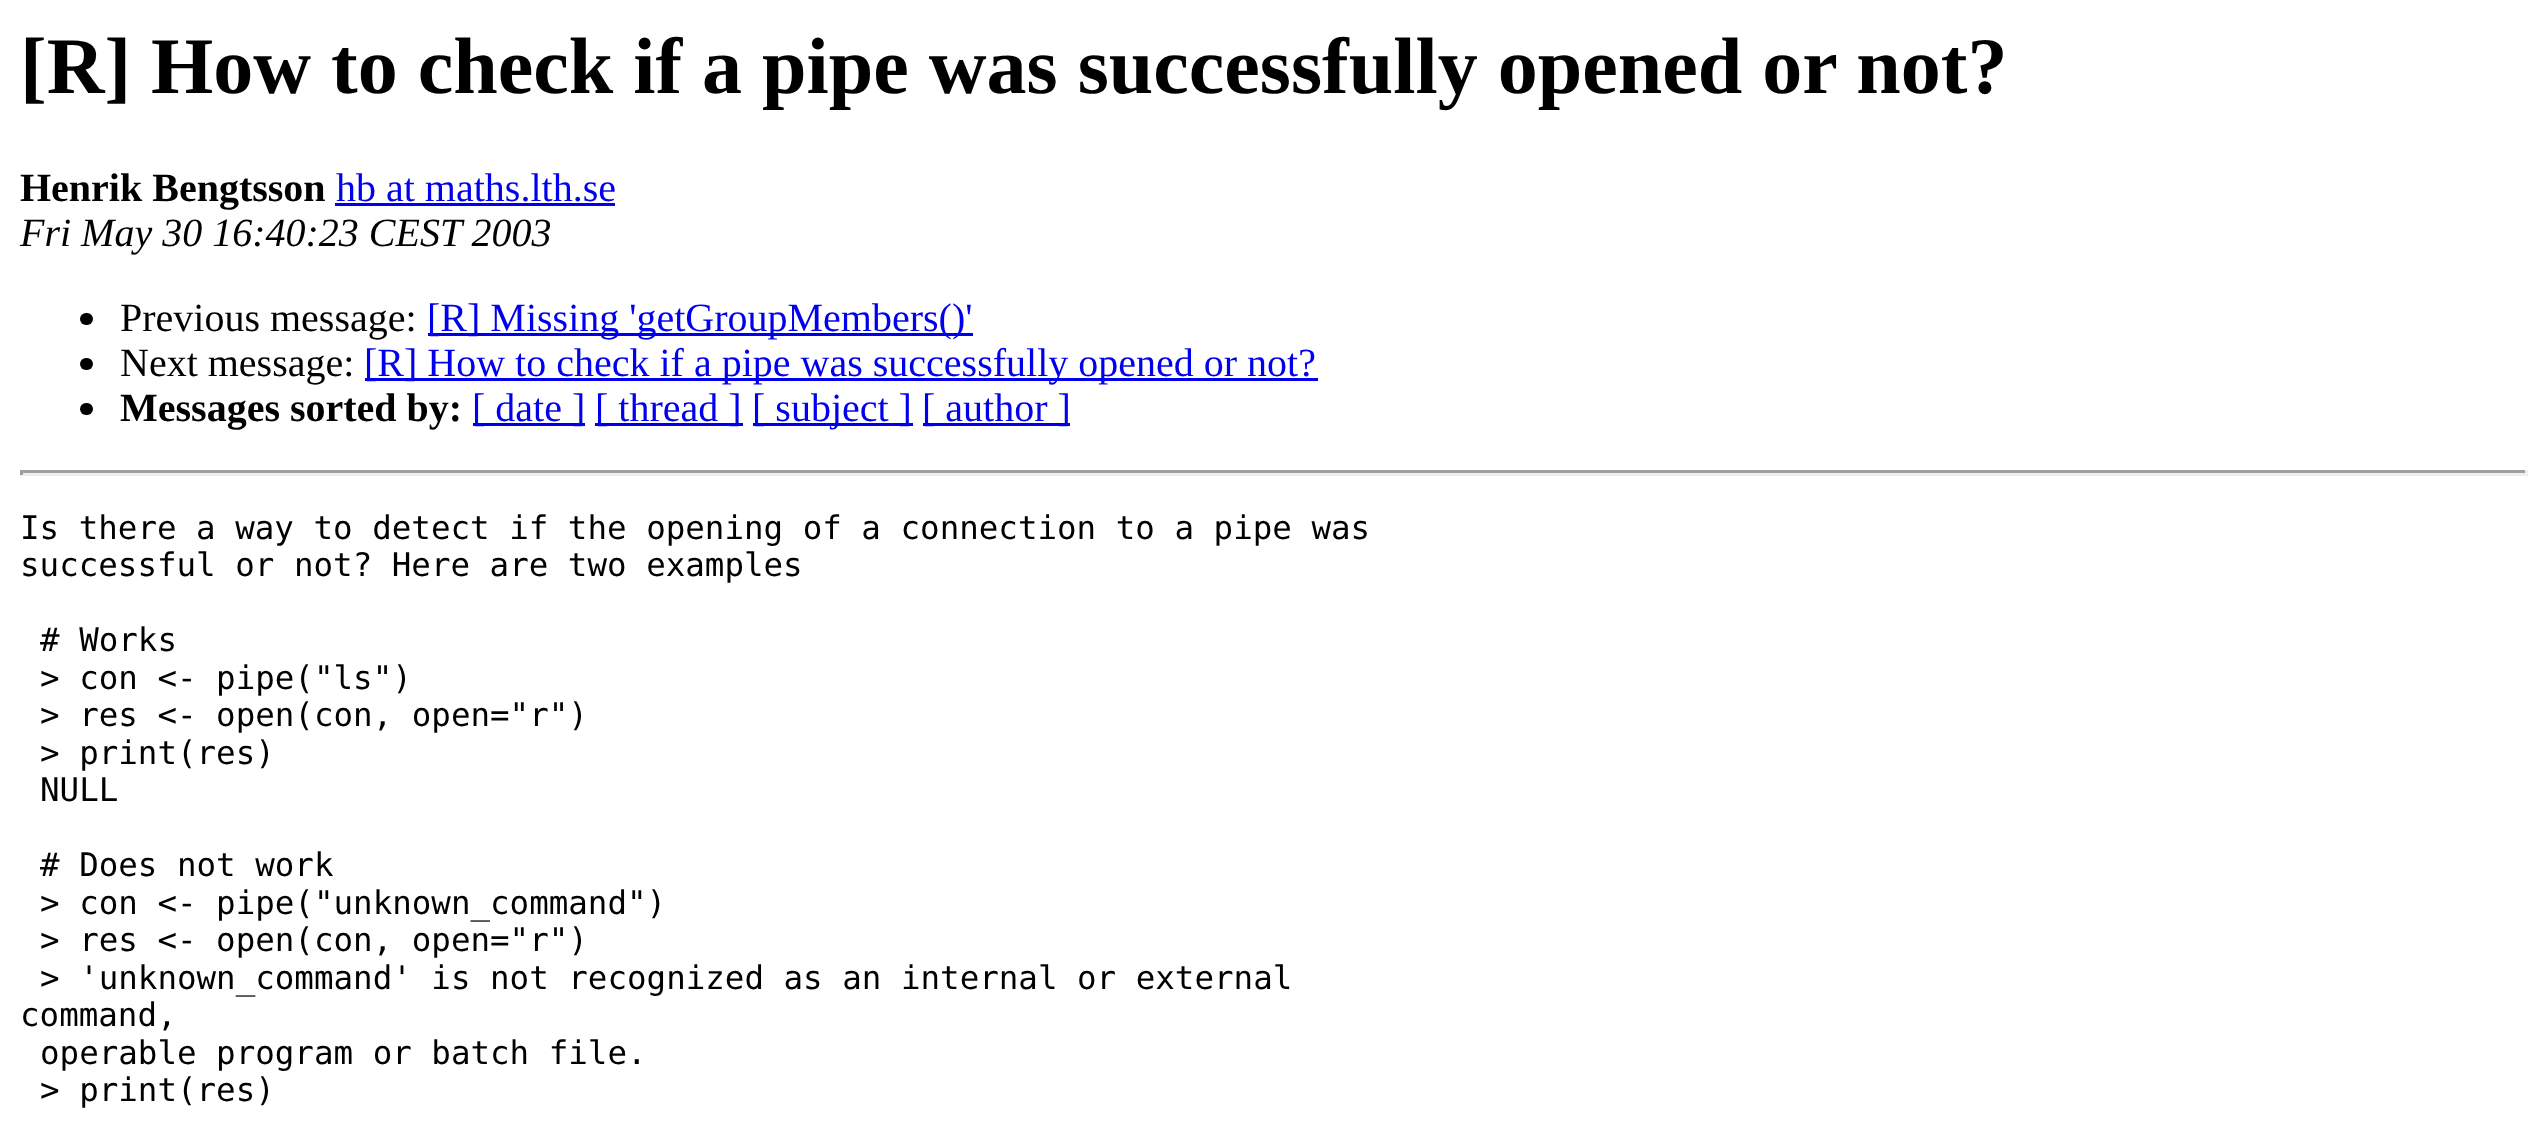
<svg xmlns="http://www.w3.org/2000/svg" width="2547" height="1133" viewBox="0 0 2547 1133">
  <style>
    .t1 { font: bold 80px Liberation Serif; fill: #000; }
    .t2 { font: bold 40px Liberation Serif; fill: #000; }
    .t3 { font: 40px Liberation Serif; fill: #00e; }
    .t4 { font: italic 40px Liberation Serif; fill: #000; }
    .t5 { font: 40px Liberation Serif; fill: #000; }
    .t6 { font: 32.5px DejaVu Sans Mono; fill: #000; }
  </style>
  <rect width="100%" height="100%" fill="#fff"/>
  <text x="20" y="93" class="t1">[R] How to check if a pipe was successfully opened or not?</text>
  <text x="20" y="201" class="t2">Henrik Bengtsson</text>
  <text x="336" y="201" class="t3">hb at maths.lth.se</text>
  <rect x="335" y="203" width="280" height="3" fill="#00e"/>
  <text x="20" y="246" class="t4">Fri May 30 16:40:23 CEST 2003</text>
  <rect x="80" y="313" width="13" height="12" rx="6" fill="#000"/>
  <text x="120" y="331" class="t5">Previous message:</text>
  <rect x="428" y="333" width="545" height="3" fill="#00e"/>
  <text x="427" y="331" class="t3">[R] Missing 'getGroupMembers()'</text>
  <rect x="80" y="358" width="13" height="12" rx="6" fill="#000"/>
  <text x="120" y="376" class="t5">Next message:</text>
  <rect x="365" y="378" width="953" height="3" fill="#00e"/>
  <text x="364" y="376" class="t3">[R] How to check if a pipe was successfully opened or not?</text>
  <rect x="80" y="403" width="13" height="12" rx="6" fill="#000"/>
  <text x="120" y="421" class="t2">Messages sorted by:</text>
  <rect x="473" y="423" width="112" height="3" fill="#00e"/>
  <text x="472" y="421" class="t3">[ date ]</text>
  <rect x="595" y="423" width="148" height="3" fill="#00e"/>
  <text x="595" y="421" class="t3">[ thread ]</text>
  <rect x="753" y="423" width="160" height="3" fill="#00e"/>
  <text x="752" y="421" class="t3">[ subject ]</text>
  <rect x="923" y="423" width="147" height="3" fill="#00e"/>
  <text x="922" y="421" class="t3">[ author ]</text>
  <rect x="20" y="470" width="2508" height="3" fill="#9f9f9f"/>
  <rect x="2525" y="470" width="3" height="5" fill="#eee"/>
  <rect x="20" y="473" width="2508" height="3" fill="#eee"/>
  <rect x="20" y="470" width="3" height="5" fill="#9f9f9f"/>
  <text x="20" y="539" class="t6">Is there a way to detect if the opening of a connection to a pipe was</text>
  <text x="20" y="576" class="t6">successful or not? Here are two examples</text>
  <text x="40" y="651" class="t6"># Works</text>
  <text x="40" y="689" class="t6">&gt; con &lt;- pipe("ls")</text>
  <text x="40" y="726" class="t6">&gt; res &lt;- open(con, open="r")</text>
  <text x="40" y="764" class="t6">&gt; print(res)</text>
  <text x="40" y="801" class="t6">NULL</text>
  <text x="40" y="876" class="t6"># Does not work</text>
  <text x="40" y="914" class="t6">&gt; con &lt;- pipe("unknown_command")</text>
  <text x="40" y="951" class="t6">&gt; res &lt;- open(con, open="r")</text>
  <text x="40" y="989" class="t6">&gt; 'unknown_command' is not recognized as an internal or external</text>
  <text x="20" y="1026" class="t6">command,</text>
  <text x="40" y="1064" class="t6">operable program or batch file.</text>
  <text x="40" y="1101" class="t6">&gt; print(res)</text>
</svg>
